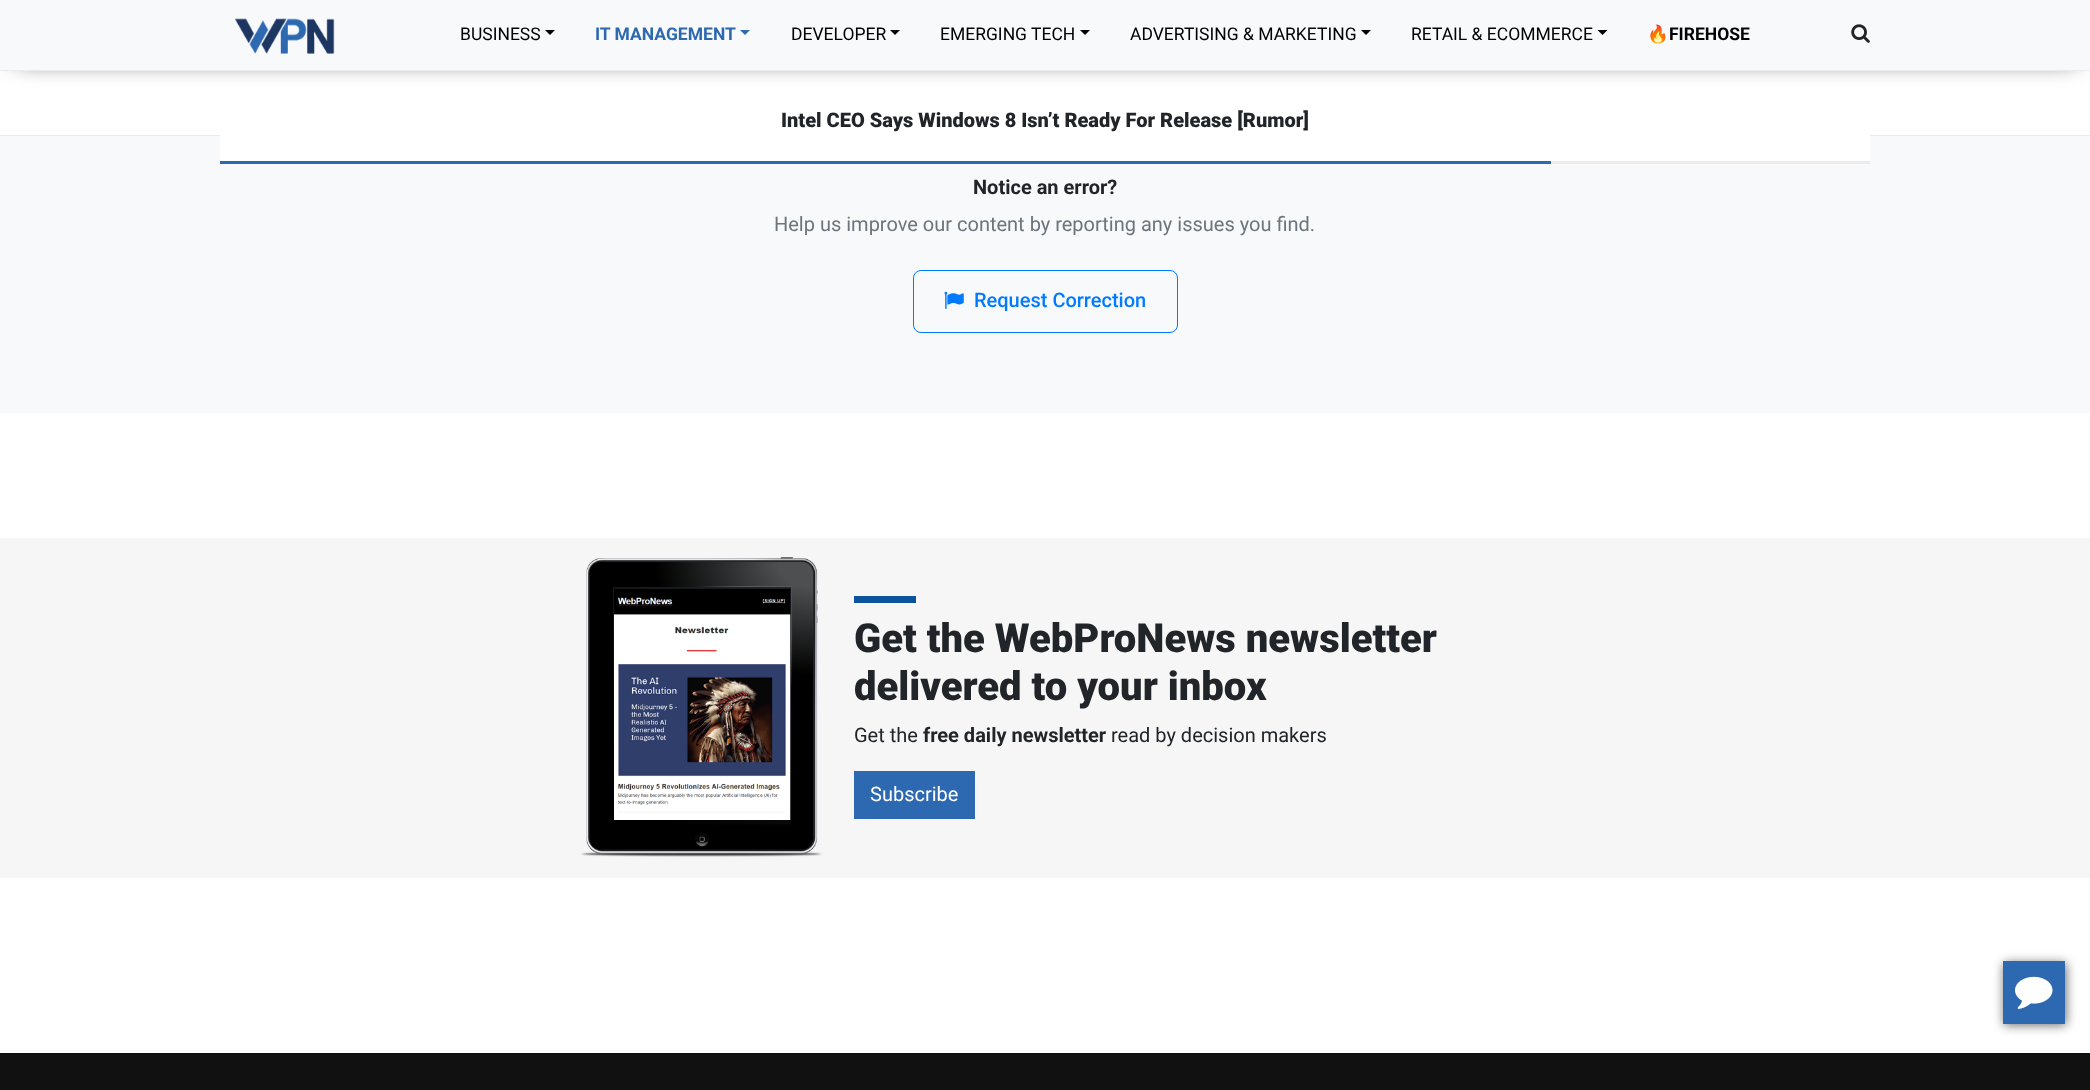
<svg xmlns="http://www.w3.org/2000/svg" width="2090" height="1090" viewBox="0 0 2090 1090">
  <style>
    .t1 { font: 17.5px Roboto; fill: #000; }
    .t2 { font: bold 17.5px Roboto; fill: #2d69b0; }
    .t3 { font: bold 17.5px Noto Color Emoji; fill: #000; }
    .t4 { font: bold 17.5px Roboto; fill: #000; }
    .t5 { font: 900 20px Roboto; fill: #212529; }
    .t6 { font: bold 20px Roboto; fill: #212529; }
    .t7 { font: 20px Roboto; fill: #6c757d; }
    .t8 { font: 500 20px Roboto; fill: #007bff; }
    .t9 { font: 900 40px Roboto; fill: #212529; }
    .t10 { font: 20px Roboto; fill: #212529; }
    .t11 { font: 20px Roboto; fill: #fff; }
  </style>
  <rect width="100%" height="100%" fill="#fff"/>
  <rect x="16" y="15" width="2060" height="43" fill="#000" filter="blur(12.5px)"/>
  <rect x="0" y="70" width="2090" height="1" fill="#ececec"/>
  <rect x="0" y="0" width="2090" height="70" fill="#f8f9fa"/>
  <image x="235" y="18" width="100" height="36" href="images/1.png"/>
  <text x="460" y="40" class="t1">BUSINESS</text>
  <path d="M545 30H555L550 35Z" fill="#000"/>
  <text x="595" y="40" class="t2">IT MANAGEMENT</text>
  <path d="M740 30H750L745 35Z" fill="#2d69b0"/>
  <text x="791" y="40" class="t1">DEVELOPER</text>
  <path d="M890 30H900L895 35Z" fill="#000"/>
  <text x="940" y="40" class="t1">EMERGING TECH</text>
  <path d="M1080 30H1090L1085 35Z" fill="#000"/>
  <text x="1130" y="40" class="t1">ADVERTISING &amp; MARKETING</text>
  <path d="M1361 30H1371L1366 35Z" fill="#000"/>
  <text x="1411" y="40" class="t1">RETAIL &amp; ECOMMERCE</text>
  <path d="M1597.5 30H1607.5L1602.5 35Z" fill="#000"/>
  <text x="1647" y="40" class="t3">🔥</text>
  <text x="1669" y="40" class="t4">FIREHOSE</text>
  <image x="1851" y="24" width="19" height="19" href="images/2.png"/>
  <rect x="0" y="136" width="2090" height="277" fill="#f8f9fa"/>
  <rect x="0" y="135" width="2090" height="1" fill="#e9ecef"/>
  <rect x="220" y="135" width="1650" height="26" fill="#fff"/>
  <text x="781" y="127" class="t5">Intel CEO Says Windows 8 Isn’t Ready For Release [Rumor]</text>
  <rect x="1551" y="161" width="319" height="3" fill="#ececec"/>
  <rect x="220" y="161" width="1331" height="3" fill="#2d69b0"/>
  <text x="973" y="194" class="t6">Notice an error?</text>
  <text x="774" y="231" class="t7">Help us improve our content by reporting any issues you find.</text>
  <rect x="913.5" y="270.5" width="264" height="62" rx="7.5" fill="none" stroke="#007bff"/>
  <image x="944" y="291" width="20" height="18" href="images/3.png"/>
  <text x="974" y="307" class="t8">Request Correction</text>
  <rect x="0" y="538" width="2090" height="340" fill="#f6f6f6"/>
  <image x="580" y="557" width="242" height="300" href="images/4.png"/>
  <rect x="854" y="596" width="62" height="7" fill="#0b539c"/>
  <text x="854" y="652" class="t9">Get the WebProNews newsletter</text>
  <text x="854" y="700" class="t9">delivered to your inbox</text>
  <text x="854" y="742" class="t10">Get the</text>
  <text x="923" y="742" class="t6">free daily newsletter</text>
  <text x="1111" y="742" class="t10">read by decision makers</text>
  <rect x="854" y="771" width="121" height="48" fill="#2d69b0"/>
  <text x="870" y="801" class="t11">Subscribe</text>
  <rect x="2004" y="963" width="62" height="62" fill="#666" filter="blur(5.5px)"/>
  <rect x="2003" y="961" width="62" height="63" fill="#2d69b0"/>
  <image x="2015" y="976" width="38" height="33" href="images/5.png"/>
  <rect x="0" y="1053" width="2090" height="37" fill="#111"/>
</svg>
